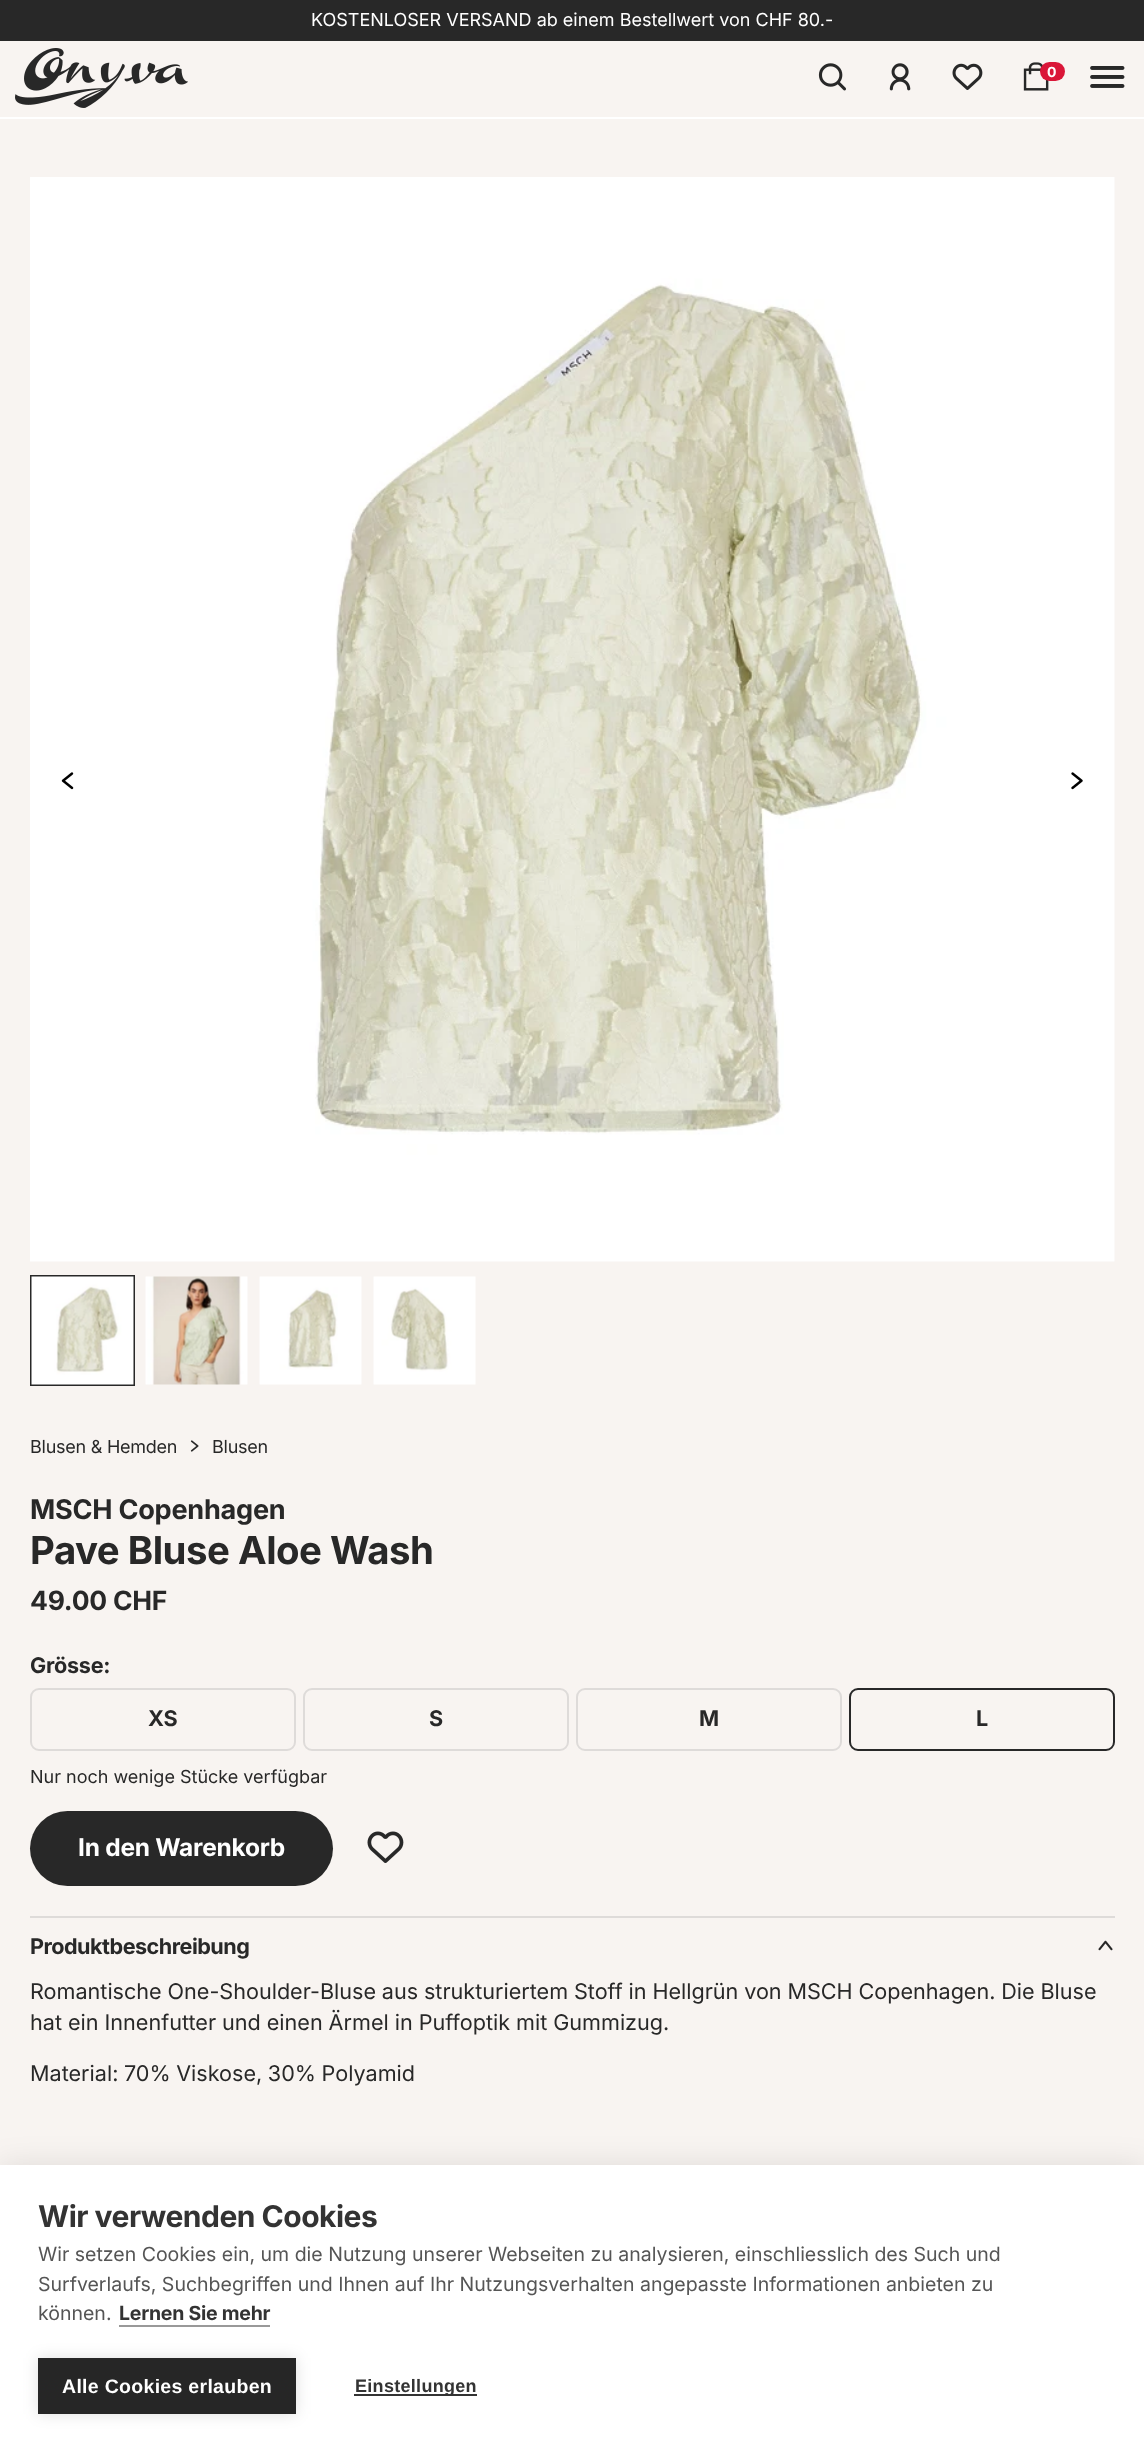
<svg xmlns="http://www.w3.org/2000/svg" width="1144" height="2450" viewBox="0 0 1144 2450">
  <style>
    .t1 { font: 18px Inter; fill: #fff; }
    .t2 { font: bold 14px Inter; letter-spacing: -0.25px; fill: #fff; }
    .t3 { font: 18px Inter; letter-spacing: -0.25px; fill: #282828; }
    .t4 { font: bold 27.1px Inter; letter-spacing: -0.25px; fill: #282828; }
    .t5 { font: bold 38.4px Inter; letter-spacing: -0.5px; fill: #282828; }
    .t6 { font: bold 26.5px Inter; letter-spacing: -0.25px; fill: #282828; }
    .t7 { font: bold 21.6px Inter; letter-spacing: -0.25px; fill: #282828; }
    .t8 { font: 18px Inter; fill: #282828; }
    .t9 { font: bold 24.5px Inter; letter-spacing: -0.25px; fill: #fff; }
    .t10 { font: bold 21.6px Inter; letter-spacing: -0.5px; fill: #282828; }
    .t11 { font: 21.6px Inter; fill: #282828; }
    .t12 { font: bold 30px Inter; letter-spacing: -0.5px; fill: #333; }
    .t13 { font: 19.5px Inter; fill: #555; }
    .t14 { font: bold 19.5px Inter; letter-spacing: -0.25px; fill: #333; }
    .t15 { font: bold 19.5px Liberation Sans; letter-spacing: 0.3px; fill: #fff; }
    .t16 { font: bold 18px Liberation Sans; letter-spacing: 0.3px; fill: #333; }
  </style>
  <rect width="100%" height="100%" fill="#f8f4f1"/>
  <rect x="0" y="117" width="1144" height="2" fill="#fff"/>
  <rect x="0" y="0" width="1144" height="41" fill="#282828"/>
  <text x="311" y="26" class="t1">KOSTENLOSER VERSAND ab einem Bestellwert von CHF 80.-</text>
  <image x="15" y="48" width="173" height="60" href="images/1.png"/>
  <image x="818" y="63" width="28" height="28" href="images/2.png"/>
  <image x="889" y="63" width="22" height="28" href="images/3.png"/>
  <image x="952" y="63" width="31" height="27" href="images/4.png"/>
  <image x="1023" y="62" width="26" height="29" href="images/5.png"/>
  <rect x="1040" y="62" width="25" height="19" rx="9.5" fill="#da1638"/>
  <text x="1047" y="77" class="t2">0</text>
  <image x="1090" y="66" width="35" height="22" href="images/6.png"/>
  <image x="30" y="177" width="1085" height="1085" href="images/7.png"/>
  <rect x="31" y="1276" width="103" height="109" fill="none" stroke="#282828" stroke-width="2"/>
  <image x="31" y="1276" width="103" height="109" href="images/8.png"/>
  <image x="145" y="1276" width="103" height="109" href="images/9.png"/>
  <image x="259" y="1276" width="103" height="109" href="images/10.png"/>
  <image x="373" y="1276" width="103" height="109" href="images/11.png"/>
  <image x="61" y="772" width="13" height="18" href="images/12.png"/>
  <image x="1071" y="772" width="12" height="18" href="images/13.png"/>
  <text x="30" y="1453" class="t3">Blusen &amp; Hemden</text>
  <image x="190" y="1440" width="9" height="12" href="images/14.png"/>
  <text x="212" y="1453" class="t3">Blusen</text>
  <text x="30" y="1519" class="t4">MSCH Copenhagen</text>
  <text x="30" y="1564" class="t5">Pave Bluse Aloe Wash</text>
  <text x="30" y="1610" class="t6">49.00 CHF</text>
  <text x="30" y="1673" class="t7">Grösse:</text>
  <rect x="31" y="1689" width="264" height="61" rx="8" fill="none" stroke="#dedbd9" stroke-width="2"/>
  <text x="148" y="1726" class="t7">XS</text>
  <rect x="304" y="1689" width="264" height="61" rx="8" fill="none" stroke="#dedbd9" stroke-width="2"/>
  <text x="429" y="1726" class="t7">S</text>
  <rect x="577" y="1689" width="264" height="61" rx="8" fill="none" stroke="#dedbd9" stroke-width="2"/>
  <text x="699" y="1726" class="t7">M</text>
  <rect x="850" y="1689" width="264" height="61" rx="8" fill="none" stroke="#282828" stroke-width="2"/>
  <text x="976" y="1726" class="t7">L</text>
  <text x="30" y="1783" class="t8">Nur noch wenige Stücke verfügbar</text>
  <rect x="30" y="1811" width="303" height="75" rx="37.5" fill="#282828"/>
  <text x="78" y="1856" class="t9">In den Warenkorb</text>
  <image x="367" y="1831" width="37" height="32" href="images/15.png"/>
  <rect x="30" y="1916" width="1085" height="2" fill="#dedbd9"/>
  <text x="30" y="1954" class="t10">Produktbeschreibung</text>
  <image x="1098" y="1940" width="15" height="11" href="images/16.png"/>
  <text x="30" y="1999" word-spacing="-0.25" class="t11">Romantische One-Shoulder-Bluse aus strukturiertem Stoff in Hellgrün von MSCH Copenhagen. Die Bluse</text>
  <text x="30" y="2030" word-spacing="-0.1" class="t11">hat ein Innenfutter und einen Ärmel in Puffoptik mit Gummizug.</text>
  <text x="30" y="2081" word-spacing="-0.5" class="t11">Material: 70% Viskose, 30% Polyamid</text>
  <rect x="0" y="2165" width="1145" height="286" fill="#0000001a" filter="blur(15px)"/>
  <rect x="0" y="2165" width="1144" height="285" fill="#fff"/>
  <text x="38" y="2227" class="t12">Wir verwenden Cookies</text>
  <text x="38" y="2261" class="t13">Wir setzen Cookies ein, um die Nutzung unserer Webseiten zu analysieren, einschliesslich des Such und</text>
  <text x="38" y="2291" class="t13">Surfverlaufs, Suchbegriffen und Ihnen auf Ihr Nutzungsverhalten angepasste Informationen anbieten zu</text>
  <text x="38" y="2320" class="t13">können.</text>
  <text x="119" y="2320" class="t14">Lernen Sie mehr</text>
  <rect x="119" y="2325" width="151" height="2" fill="#999"/>
  <rect x="38" y="2358" width="258" height="56" fill="#0000001f" filter="blur(7.5px)"/>
  <rect x="38" y="2358" width="258" height="56" fill="#262626"/>
  <text x="62" y="2393" class="t15">Alle Cookies erlauben</text>
  <rect x="354" y="2394" width="123" height="2" fill="#333"/>
  <text x="355" y="2392" class="t16">Einstellungen</text>
</svg>
